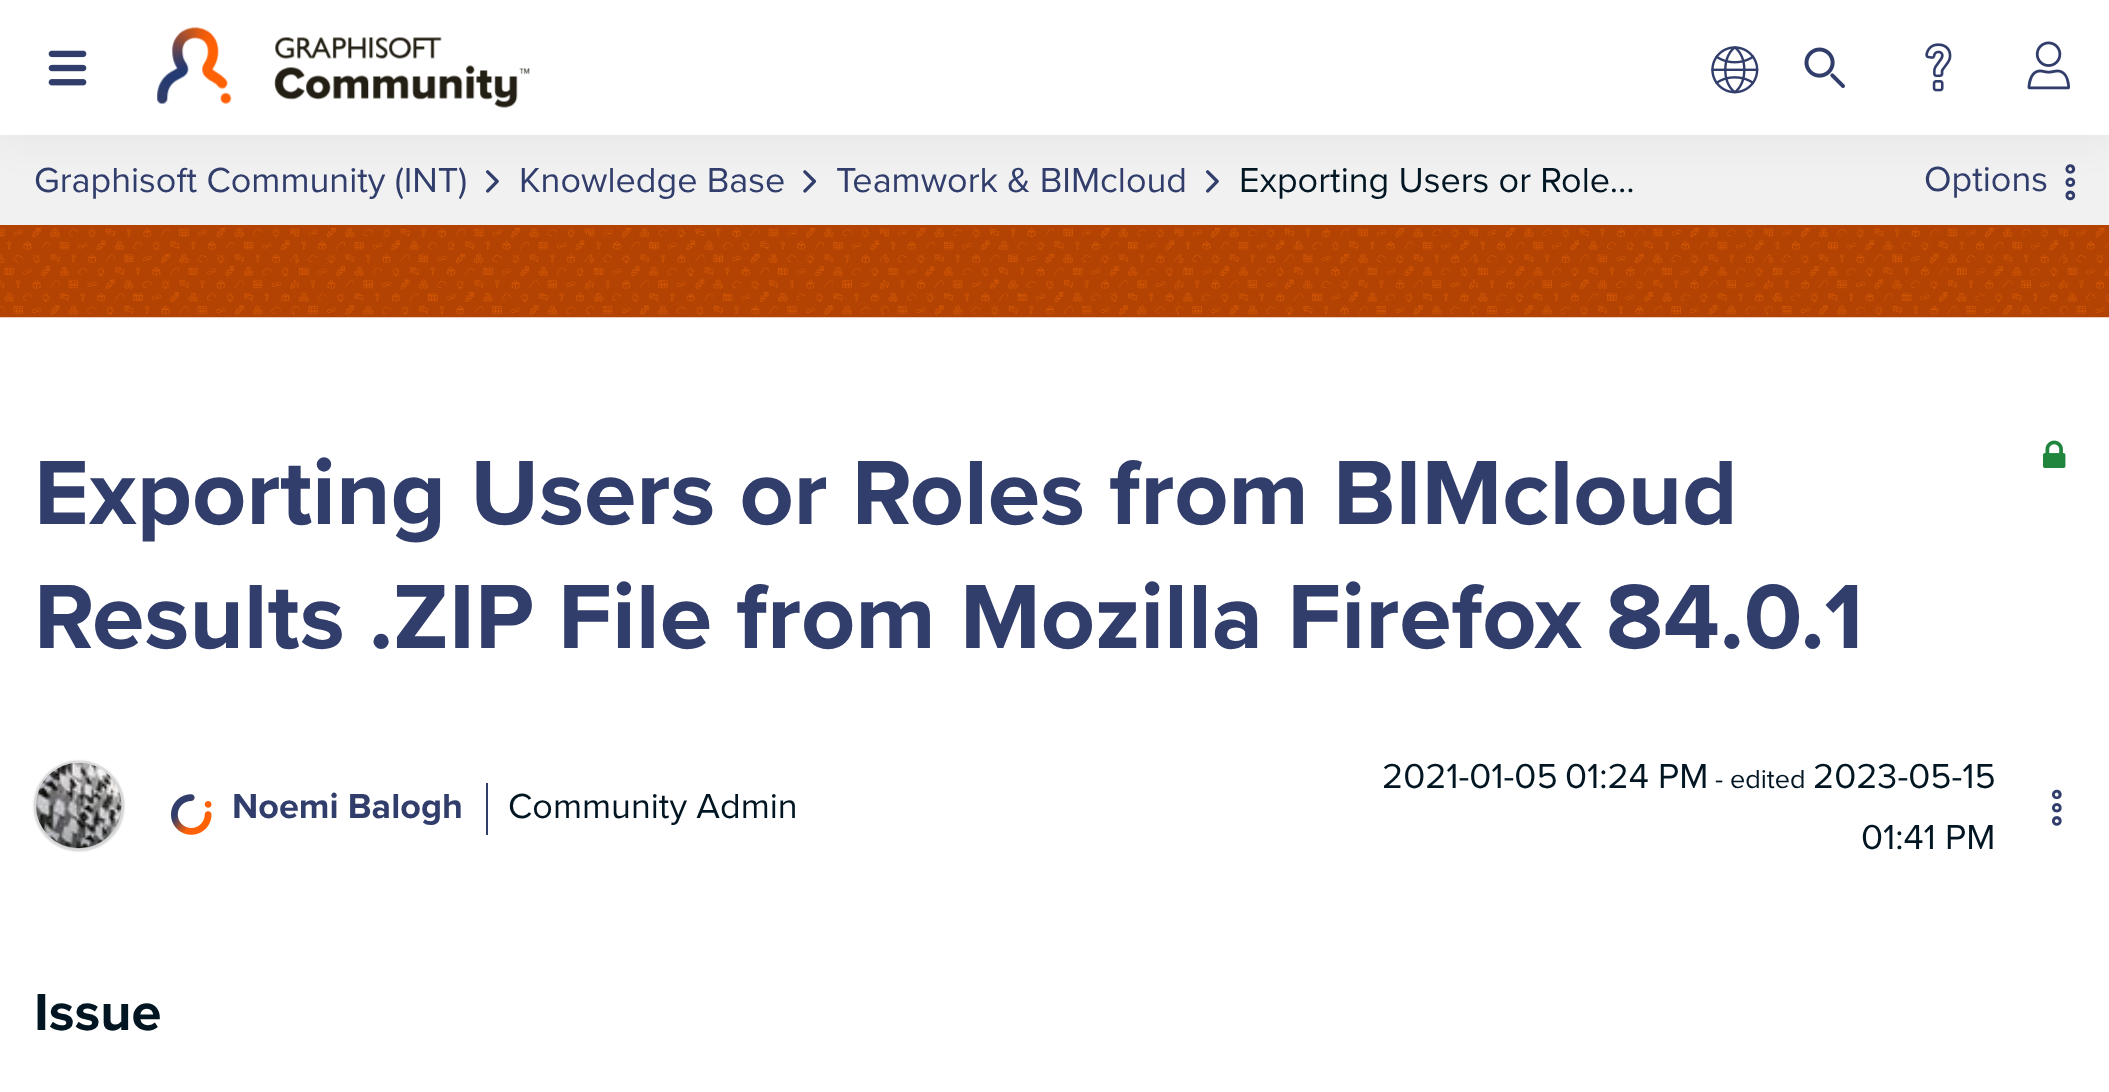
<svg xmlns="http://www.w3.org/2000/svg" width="2109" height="1092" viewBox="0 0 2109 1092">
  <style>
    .t1 { font: 36px Proxima Nova; fill: #313d6b; }
    .t2 { font: 36px Proxima Nova; fill: #011622; }
    .t3 { font: bold 94.5px Proxima Nova; fill: #313d6b; }
    .t4 { font: bold 36px Proxima Nova; fill: #313d6b; }
    .t5 { font: 27px Proxima Nova; fill: #011622; }
    .t6 { font: bold 54px Proxima Nova; fill: #011622; }
  </style>
  <rect width="100%" height="100%" fill="#fff"/>
  <rect x="0" y="135" width="2109" height="90" fill="#f1f1f2"/>
  <image x="486" y="170" width="13" height="23" href="images/7.png"/>
  <image x="803" y="170" width="14" height="23" href="images/8.png"/>
  <image x="1206" y="170" width="13" height="23" href="images/7.png"/>
  <image x="2065" y="164" width="11" height="37" href="images/9.png"/>
  <rect x="0" y="0" width="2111" height="135" fill="#231f2012" filter="blur(22.5px)"/>
  <rect x="0" y="0" width="2109" height="135" fill="#fff"/>
  <image x="48" y="50" width="39" height="36" href="images/1.png"/>
  <image x="157" y="27" width="373" height="81" href="images/2.png"/>
  <image x="1711" y="46" width="48" height="48" href="images/3.png"/>
  <image x="1804" y="47" width="41" height="41" href="images/4.png"/>
  <image x="1925" y="43" width="27" height="49" href="images/5.png"/>
  <image x="2027" y="41" width="43" height="49" href="images/6.png"/>
  <text x="34" y="192" class="t1">Graphisoft Community (INT)</text>
  <text x="519" y="192" class="t1">Knowledge Base</text>
  <text x="836" y="192" class="t1">Teamwork &amp; BIMcloud</text>
  <text x="1239" y="192" class="t2">Exporting Users or Role…</text>
  <text x="1924" y="191" class="t1">Options</text>
  <image x="0" y="225" width="2109" height="93" href="images/10.png"/>
  <image x="2043" y="440" width="23" height="28" href="images/11.png"/>
  <text x="34" y="524" class="t3">Exporting Users or Roles from BIMcloud</text>
  <text x="34" y="648" class="t3">Results .ZIP File from Mozilla Firefox 84.0.1</text>
  <rect x="34" y="761" width="90" height="90" rx="45" fill="#c4c4c4" filter="blur(1px)"/>
  <circle cx="79" cy="806" r="44" fill="none" stroke="#dadada" stroke-width="2"/>
  <image x="36" y="763" width="86" height="86" href="images/12.png"/>
  <image x="171" y="794" width="41" height="41" href="images/13.png"/>
  <text x="232" y="818" class="t4">Noemi Balogh</text>
  <rect x="486" y="783" width="2" height="52" fill="#313d6b"/>
  <text x="508" y="818" class="t2">Community Admin</text>
  <text x="1382" y="788" class="t2">2021-01-05</text>
  <text x="1565" y="788" class="t2">01:24 PM</text>
  <text x="1715" y="788" class="t5">- edited</text>
  <text x="1813" y="788" class="t2">2023-05-15</text>
  <text x="1861" y="849" class="t2">01:41 PM</text>
  <image x="2052" y="789" width="10" height="37" href="images/14.png"/>
  <text x="34" y="1030" class="t6">Issue</text>
</svg>
